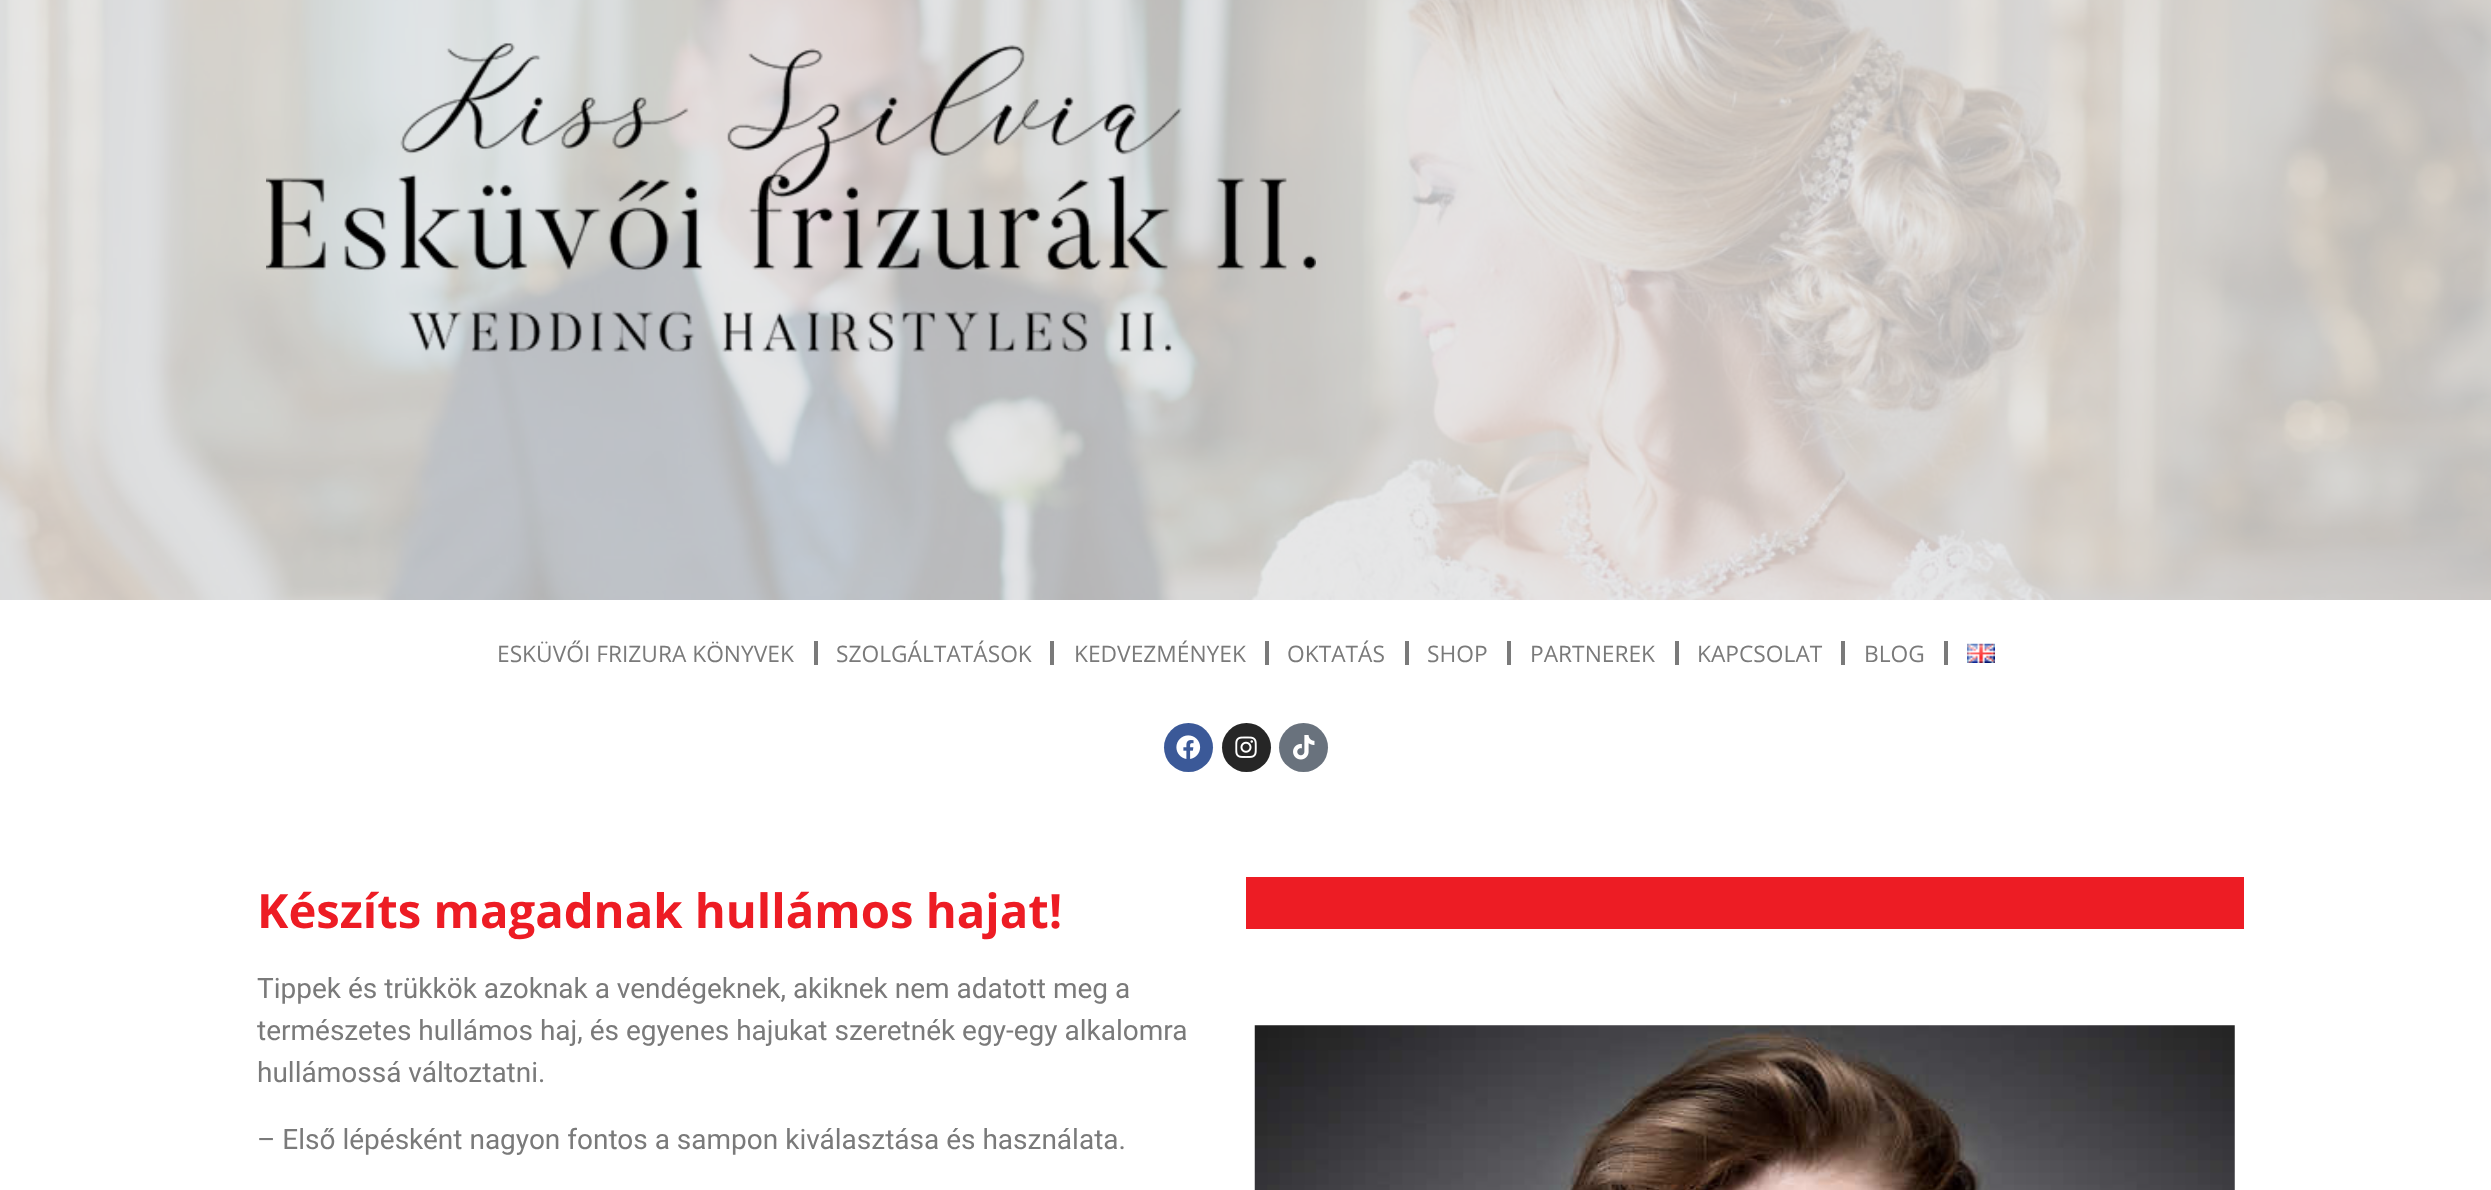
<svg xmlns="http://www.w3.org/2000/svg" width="2491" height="1190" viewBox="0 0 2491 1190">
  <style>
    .t1 { font: 22.75px Open Sans; fill: #7a7a7a; }
    .t2 { font: bold 47.25px Open Sans; fill: #ed1c24; }
    .t3 { font: 28px Roboto; fill: #7a7a7a; }
  </style>
  <rect width="100%" height="100%" fill="#fff"/>
  <image x="0" y="0" width="2491" height="600" href="images/1.png"/>
  <image x="266" y="43" width="1050" height="309" href="images/2.png"/>
  <text x="497" y="662" class="t1">ESKÜVŐI FRIZURA KÖNYVEK</text>
  <rect x="814" y="641" width="4" height="24" fill="#7a7a7a"/>
  <text x="836" y="662" class="t1">SZOLGÁLTATÁSOK</text>
  <rect x="1050" y="641" width="4" height="24" fill="#7a7a7a"/>
  <text x="1074" y="662" class="t1">KEDVEZMÉNYEK</text>
  <rect x="1265" y="641" width="4" height="24" fill="#7a7a7a"/>
  <text x="1287" y="662" class="t1">OKTATÁS</text>
  <rect x="1405" y="641" width="4" height="24" fill="#7a7a7a"/>
  <text x="1427" y="662" class="t1">SHOP</text>
  <rect x="1507" y="641" width="4" height="24" fill="#7a7a7a"/>
  <text x="1530" y="662" class="t1">PARTNEREK</text>
  <rect x="1675" y="641" width="4" height="24" fill="#7a7a7a"/>
  <text x="1697" y="662" class="t1">KAPCSOLAT</text>
  <rect x="1841" y="641" width="4" height="24" fill="#7a7a7a"/>
  <text x="1864" y="662" class="t1">BLOG</text>
  <rect x="1944" y="641" width="4" height="24" fill="#7a7a7a"/>
  <image x="1967" y="643" width="28" height="20" href="images/3.png"/>
  <circle cx="1188.5" cy="747.5" r="24.5" fill="#3b5998"/>
  <image x="1176" y="735" width="25" height="24" href="images/4.png"/>
  <circle cx="1246.5" cy="747.5" r="24.5" fill="#262626"/>
  <image x="1235" y="736" width="22" height="22" href="images/5.png"/>
  <circle cx="1303.5" cy="747.5" r="24.5" fill="#69727d"/>
  <image x="1293" y="735" width="22" height="25" href="images/6.png"/>
  <text x="257" y="928" class="t2">Készíts magadnak hullámos hajat!</text>
  <text x="257" y="998" class="t3">Tippek és trükkök azoknak a vendégeknek, akiknek nem adatott meg a</text>
  <text x="257" y="1040" class="t3">természetes hullámos haj, és egyenes hajukat szeretnék egy-egy alkalomra</text>
  <text x="257" y="1082" class="t3">hullámossá változtatni.</text>
  <text x="257" y="1149" class="t3">– Első lépésként nagyon fontos a sampon kiválasztása és használata.</text>
  <rect x="1246" y="877" width="998" height="52" fill="#ed1c24"/>
  <image x="1254" y="1025" width="981" height="165" href="images/7.png"/>
</svg>
